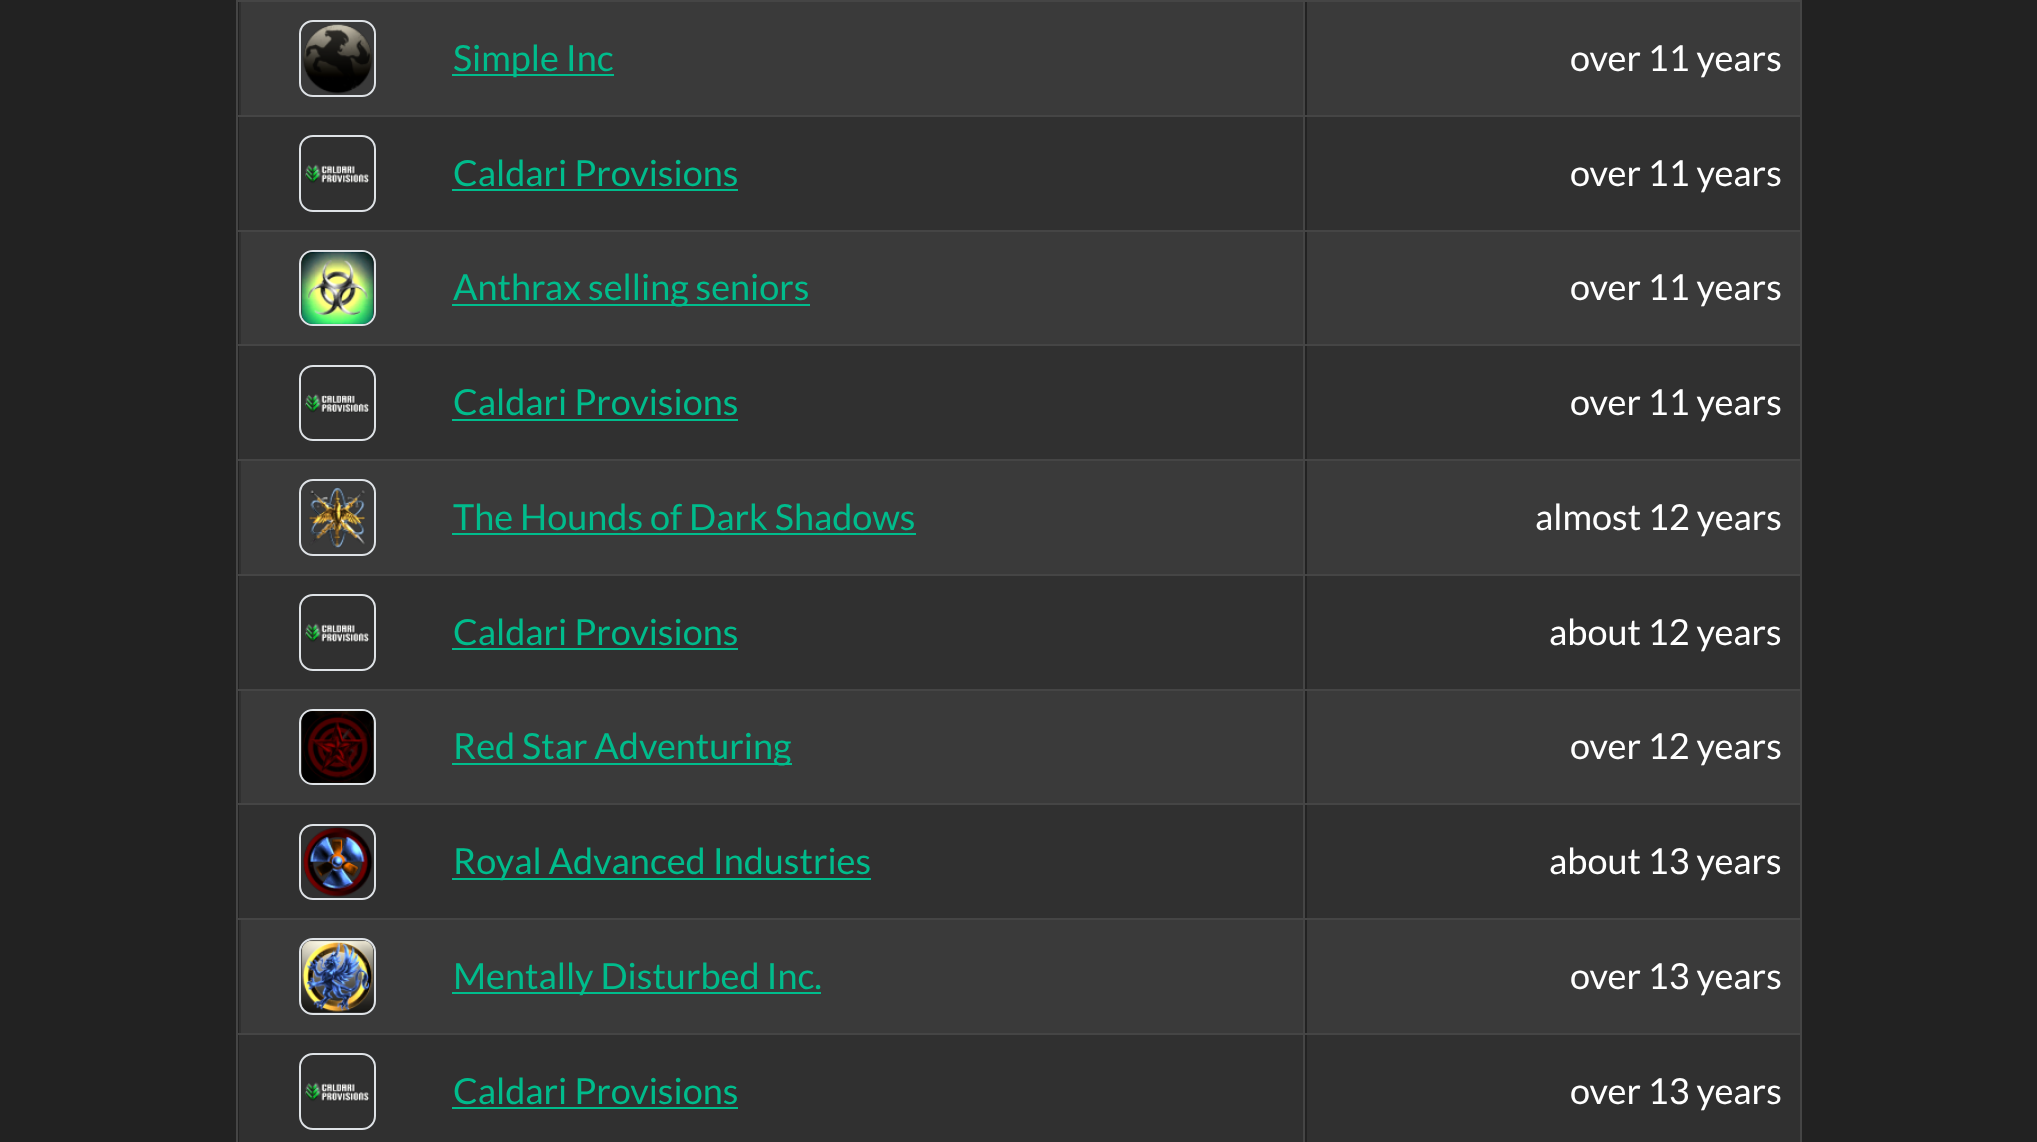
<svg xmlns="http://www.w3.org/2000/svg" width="2037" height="1142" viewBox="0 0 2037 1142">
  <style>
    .t1 { font: 36px Lato; fill: #00bc8c; }
    .t2 { font: 36px Lato; fill: #fff; }
  </style>
  <rect width="100%" height="100%" fill="#222"/>
  <rect x="236" y="0" width="1566" height="2" fill="#454545"/>
  <rect x="239" y="2" width="2" height="113" fill="#303030"/>
  <rect x="241" y="2" width="1062" height="113" fill="#3a3a3a"/>
  <rect x="300" y="21" width="75" height="75" rx="13" fill="none" stroke="#dee2e6" stroke-width="2"/>
  <image x="302" y="24" width="71" height="70" href="images/1.png"/>
  <rect x="452" y="74" width="162" height="2" fill="#00bc8c"/>
  <text x="453" y="71" class="t1">Simple Inc</text>
  <rect x="1307" y="2" width="493" height="113" fill="#3a3a3a"/>
  <text x="1570" y="71" class="t2">over 11 years</text>
  <rect x="236" y="115" width="1566" height="2" fill="#454545"/>
  <rect x="239" y="117" width="1064" height="113" fill="#303030"/>
  <rect x="300" y="136" width="75" height="75" rx="13" fill="none" stroke="#dee2e6" stroke-width="2"/>
  <image x="305" y="164" width="65" height="20" href="images/2.png"/>
  <text x="453" y="186" class="t1">Caldari Provisions</text>
  <rect x="452" y="189" width="286" height="2" fill="#00bc8c"/>
  <rect x="1307" y="117" width="493" height="113" fill="#303030"/>
  <text x="1570" y="186" class="t2">over 11 years</text>
  <rect x="236" y="230" width="1566" height="2" fill="#454545"/>
  <rect x="239" y="232" width="2" height="112" fill="#303030"/>
  <rect x="241" y="232" width="1062" height="112" fill="#3a3a3a"/>
  <rect x="300" y="251" width="75" height="74" rx="13" fill="none" stroke="#dee2e6" stroke-width="2"/>
  <image x="301" y="252" width="73" height="72" href="images/3.png"/>
  <rect x="452" y="304" width="358" height="2" fill="#00bc8c"/>
  <text x="453" y="300" class="t1">Anthrax selling seniors</text>
  <rect x="1307" y="232" width="493" height="112" fill="#3a3a3a"/>
  <text x="1570" y="300" class="t2">over 11 years</text>
  <rect x="236" y="344" width="1566" height="2" fill="#454545"/>
  <rect x="239" y="346" width="1064" height="113" fill="#303030"/>
  <rect x="300" y="366" width="75" height="74" rx="13" fill="none" stroke="#dee2e6" stroke-width="2"/>
  <image x="304" y="394" width="66" height="19" href="images/4.png"/>
  <text x="453" y="415" class="t1">Caldari Provisions</text>
  <rect x="452" y="419" width="286" height="2" fill="#00bc8c"/>
  <rect x="1307" y="346" width="493" height="113" fill="#303030"/>
  <text x="1570" y="415" class="t2">over 11 years</text>
  <rect x="236" y="459" width="1566" height="2" fill="#454545"/>
  <rect x="239" y="461" width="2" height="113" fill="#303030"/>
  <rect x="241" y="461" width="1062" height="113" fill="#3a3a3a"/>
  <rect x="300" y="480" width="75" height="75" rx="13" fill="none" stroke="#dee2e6" stroke-width="2"/>
  <image x="308" y="487" width="57" height="61" href="images/5.png"/>
  <text x="453" y="530" class="t1">The Hounds of Dark Shadows</text>
  <rect x="452" y="533" width="464" height="2" fill="#00bc8c"/>
  <rect x="1307" y="461" width="493" height="113" fill="#3a3a3a"/>
  <text x="1535" y="530" class="t2">almost 12 years</text>
  <rect x="236" y="574" width="1566" height="2" fill="#454545"/>
  <rect x="239" y="576" width="1064" height="113" fill="#303030"/>
  <rect x="300" y="595" width="75" height="75" rx="13" fill="none" stroke="#dee2e6" stroke-width="2"/>
  <image x="305" y="623" width="65" height="20" href="images/2.png"/>
  <text x="453" y="645" class="t1">Caldari Provisions</text>
  <rect x="452" y="648" width="286" height="2" fill="#00bc8c"/>
  <rect x="1307" y="576" width="493" height="113" fill="#303030"/>
  <text x="1549" y="645" class="t2">about 12 years</text>
  <rect x="236" y="689" width="1566" height="2" fill="#454545"/>
  <rect x="239" y="691" width="2" height="112" fill="#303030"/>
  <rect x="241" y="691" width="1062" height="112" fill="#3a3a3a"/>
  <rect x="300" y="710" width="75" height="74" rx="13" fill="none" stroke="#dee2e6" stroke-width="2"/>
  <image x="301" y="711" width="73" height="72" href="images/6.png"/>
  <rect x="452" y="763" width="340" height="2" fill="#00bc8c"/>
  <text x="453" y="759" class="t1">Red Star Adventuring</text>
  <rect x="1307" y="691" width="493" height="112" fill="#3a3a3a"/>
  <text x="1570" y="759" class="t2">over 12 years</text>
  <rect x="236" y="803" width="1566" height="2" fill="#454545"/>
  <rect x="239" y="805" width="1064" height="113" fill="#303030"/>
  <rect x="300" y="825" width="75" height="74" rx="13" fill="none" stroke="#dee2e6" stroke-width="2"/>
  <image x="303" y="827" width="70" height="70" href="images/7.png"/>
  <rect x="452" y="878" width="419" height="2" fill="#00bc8c"/>
  <text x="453" y="874" class="t1">Royal Advanced Industries</text>
  <rect x="1307" y="805" width="493" height="113" fill="#303030"/>
  <text x="1549" y="874" class="t2">about 13 years</text>
  <rect x="236" y="918" width="1566" height="2" fill="#454545"/>
  <rect x="239" y="920" width="2" height="113" fill="#303030"/>
  <rect x="241" y="920" width="1062" height="113" fill="#3a3a3a"/>
  <rect x="300" y="939" width="75" height="75" rx="13" fill="none" stroke="#dee2e6" stroke-width="2"/>
  <image x="301" y="940" width="73" height="73" href="images/8.png"/>
  <rect x="452" y="992" width="369" height="2" fill="#00bc8c"/>
  <text x="453" y="989" class="t1">Mentally Disturbed Inc.</text>
  <rect x="1307" y="920" width="493" height="113" fill="#3a3a3a"/>
  <text x="1570" y="989" class="t2">over 13 years</text>
  <rect x="236" y="1033" width="1566" height="2" fill="#454545"/>
  <rect x="239" y="1035" width="1064" height="107" fill="#303030"/>
  <rect x="236" y="0" width="2" height="1142" fill="#454545"/>
  <rect x="300" y="1054" width="75" height="75" rx="13" fill="none" stroke="#dee2e6" stroke-width="2"/>
  <image x="305" y="1082" width="65" height="20" href="images/2.png"/>
  <text x="453" y="1104" class="t1">Caldari Provisions</text>
  <rect x="452" y="1107" width="286" height="2" fill="#00bc8c"/>
  <rect x="1307" y="1035" width="493" height="107" fill="#303030"/>
  <rect x="1800" y="0" width="2" height="1142" fill="#454545"/>
  <rect x="1303" y="0" width="2" height="1142" fill="#454545"/>
  <text x="1570" y="1104" class="t2">over 13 years</text>
</svg>
